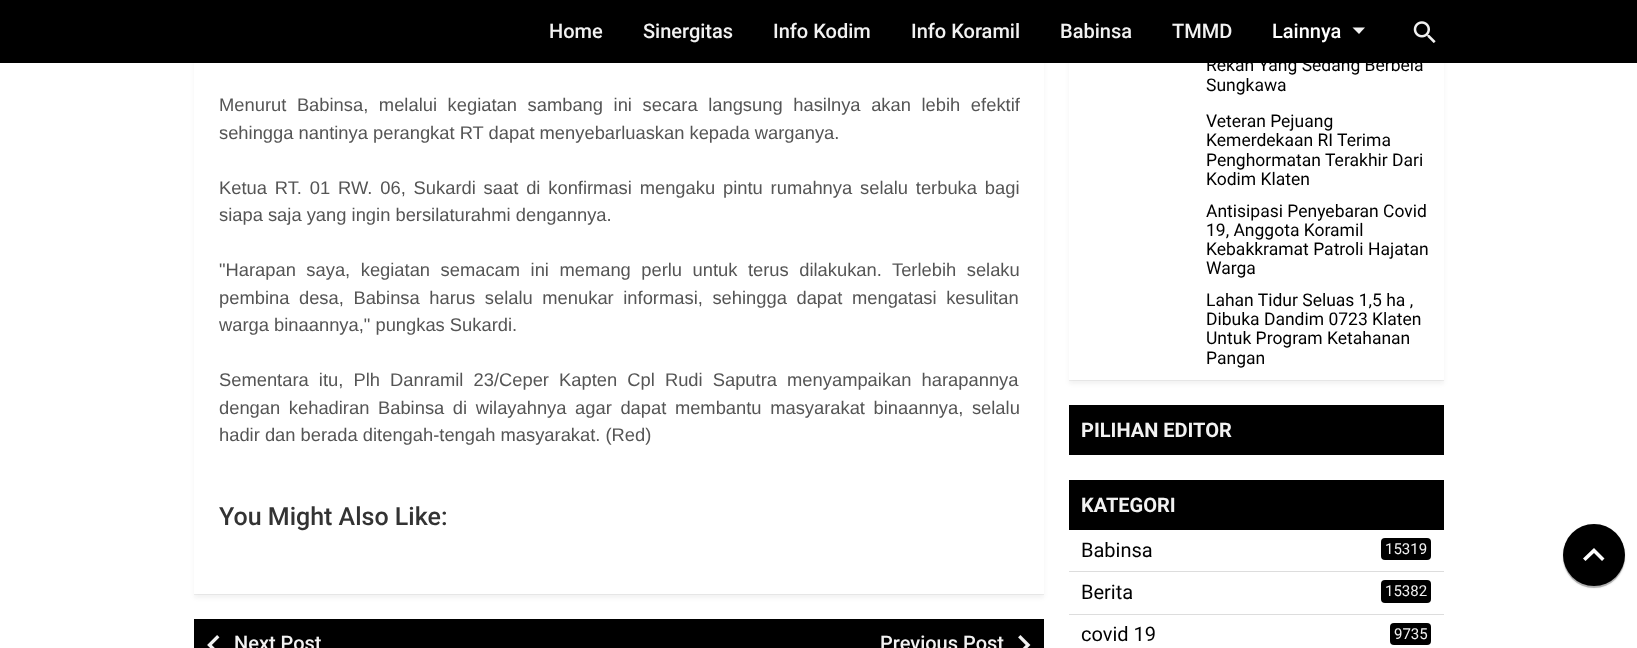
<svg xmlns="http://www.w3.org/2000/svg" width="1637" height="648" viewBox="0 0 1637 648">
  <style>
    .t1 { font: 500 20px Roboto; fill: #f2f2f2; }
    .t2 { font: 500 20px Roboto; fill: #fff; }
    .t3 { font: 18.35px Liberation Sans; fill: #555; }
    .t4 { font: 500 25px Roboto; fill: #333; }
    .t5 { font: 17.5px Roboto; fill: #000; }
    .t6 { font: bold 20px Roboto; fill: #f2f2f2; }
    .t7 { font: 20px Roboto; fill: #000; }
    .t8 { font: 15px Roboto; fill: #f2f2f2; }
  </style>
  <rect width="100%" height="100%" fill="#fff"/>
  <rect x="194" y="-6" width="850" height="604" fill="#0000000d" filter="blur(2px)"/>
  <rect x="1069" y="-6" width="375" height="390" fill="#0000000d" filter="blur(2px)"/>
  <rect x="0" y="0" width="1637" height="63" fill="#000"/>
  <text x="549" y="38" class="t1">Home</text>
  <text x="643" y="38" class="t1">Sinergitas</text>
  <text x="773" y="38" class="t1">Info Kodim</text>
  <text x="911" y="38" class="t1">Info Koramil</text>
  <text x="1060" y="38" class="t1">Babinsa</text>
  <text x="1172" y="38" class="t1">TMMD</text>
  <text x="1272" y="38" class="t2">Lainnya</text>
  <path d="M1352.5 27.5L1359 34L1365 27.5Z" fill="#f2f2f2"/>
  <image x="1413" y="21" width="23" height="22" href="images/1.png"/>
  <path d="M194 594V595H1044V-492V594Z" fill="#0000000d"/>
  <rect x="194" y="63" width="850" height="531" fill="#fff"/>
  <text x="219" y="111" word-spacing="5.5" class="t3">Menurut Babinsa, melalui kegiatan sambang ini secara langsung hasilnya akan lebih efektif</text>
  <text x="219" y="139" class="t3">sehingga nantinya perangkat RT dapat menyebarluaskan kepada warganya.</text>
  <text x="219" y="194" word-spacing="2.75" class="t3">Ketua RT. 01 RW. 06, Sukardi saat di konfirmasi mengaku pintu rumahnya selalu terbuka bagi</text>
  <text x="219" y="221" class="t3">siapa saja yang ingin bersilaturahmi dengannya.</text>
  <text x="219" y="276" word-spacing="5.4" class="t3">"Harapan saya, kegiatan semacam ini memang perlu untuk terus dilakukan. Terlebih selaku</text>
  <text x="219" y="304" word-spacing="4.5" class="t3">pembina desa, Babinsa harus selalu menukar informasi, sehingga dapat mengatasi kesulitan</text>
  <text x="219" y="331" class="t3">warga binaannya," pungkas Sukardi.</text>
  <text x="219" y="386" word-spacing="5" class="t3">Sementara itu, Plh Danramil 23/Ceper Kapten Cpl Rudi Saputra menyampaikan harapannya</text>
  <text x="219" y="414" word-spacing="3.5" class="t3">dengan kehadiran Babinsa di wilayahnya agar dapat membantu masyarakat binaannya, selalu</text>
  <text x="219" y="441" class="t3">hadir dan berada ditengah-tengah masyarakat. (Red)</text>
  <text x="219" y="525" class="t4">You Might Also Like:</text>
  <rect x="194" y="619" width="850" height="29" fill="#000"/>
  <image x="207" y="635" width="13" height="13" href="images/2.png"/>
  <text x="234" y="650" class="t1">Next Post</text>
  <text x="880" y="650" class="t1">Previous Post</text>
  <image x="1018" y="635" width="13" height="13" href="images/3.png"/>
  <path d="M1069 380V381H1444V-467V380Z" fill="#0000000d"/>
  <rect x="1069" y="63" width="375" height="317" fill="#fff"/>
  <text x="1206" y="71" class="t5">Rekan Yang Sedang Berbela</text>
  <text x="1206" y="91" class="t5">Sungkawa</text>
  <text x="1206" y="127" class="t5">Veteran Pejuang</text>
  <text x="1206" y="146" class="t5">Kemerdekaan RI Terima</text>
  <text x="1206" y="166" class="t5">Penghormatan Terakhir Dari</text>
  <text x="1206" y="185" class="t5">Kodim Klaten</text>
  <text x="1206" y="217" class="t5">Antisipasi Penyebaran Covid</text>
  <text x="1206" y="236" class="t5">19, Anggota Koramil</text>
  <text x="1206" y="255" class="t5">Kebakkramat Patroli Hajatan</text>
  <text x="1206" y="274" class="t5">Warga</text>
  <text x="1206" y="306" class="t5">Lahan Tidur Seluas 1,5 ha ,</text>
  <text x="1206" y="325" class="t5">Dibuka Dandim 0723 Klaten</text>
  <text x="1206" y="344" class="t5">Untuk Program Ketahanan</text>
  <text x="1206" y="364" class="t5">Pangan</text>
  <rect x="1069" y="405" width="375" height="50" fill="#000"/>
  <text x="1081" y="437" class="t6">PILIHAN EDITOR</text>
  <rect x="1069" y="480" width="375" height="50" fill="#000"/>
  <text x="1081" y="512" class="t6">KATEGORI</text>
  <rect x="1069" y="571" width="375" height="1" fill="#ddd"/>
  <text x="1081" y="557" class="t7">Babinsa</text>
  <rect x="1381" y="538" width="50" height="22" rx="4" fill="#000"/>
  <text x="1385" y="554" class="t8">15319</text>
  <rect x="1069" y="614" width="375" height="1" fill="#ddd"/>
  <text x="1081" y="599" class="t7">Berita</text>
  <rect x="1381" y="580" width="50" height="23" rx="4" fill="#000"/>
  <text x="1385" y="596" class="t8">15382</text>
  <text x="1081" y="641" class="t7">covid 19</text>
  <rect x="1390" y="623" width="41" height="22" rx="4" fill="#000"/>
  <text x="1394" y="639" class="t8">9735</text>
  <rect x="1563" y="525" width="62" height="63" rx="31" fill="#0000003d" filter="blur(0.5px)"/>
  <rect x="1563" y="525" width="62" height="63" rx="31" fill="#0000001f" filter="blur(1px)"/>
  <circle cx="1594" cy="555" r="31" fill="#000"/>
  <path d="M1585.5 561L1594 553L1602 561L1604.5 558.5L1594 548L1583 558.5Z" fill="#fff"/>
</svg>
